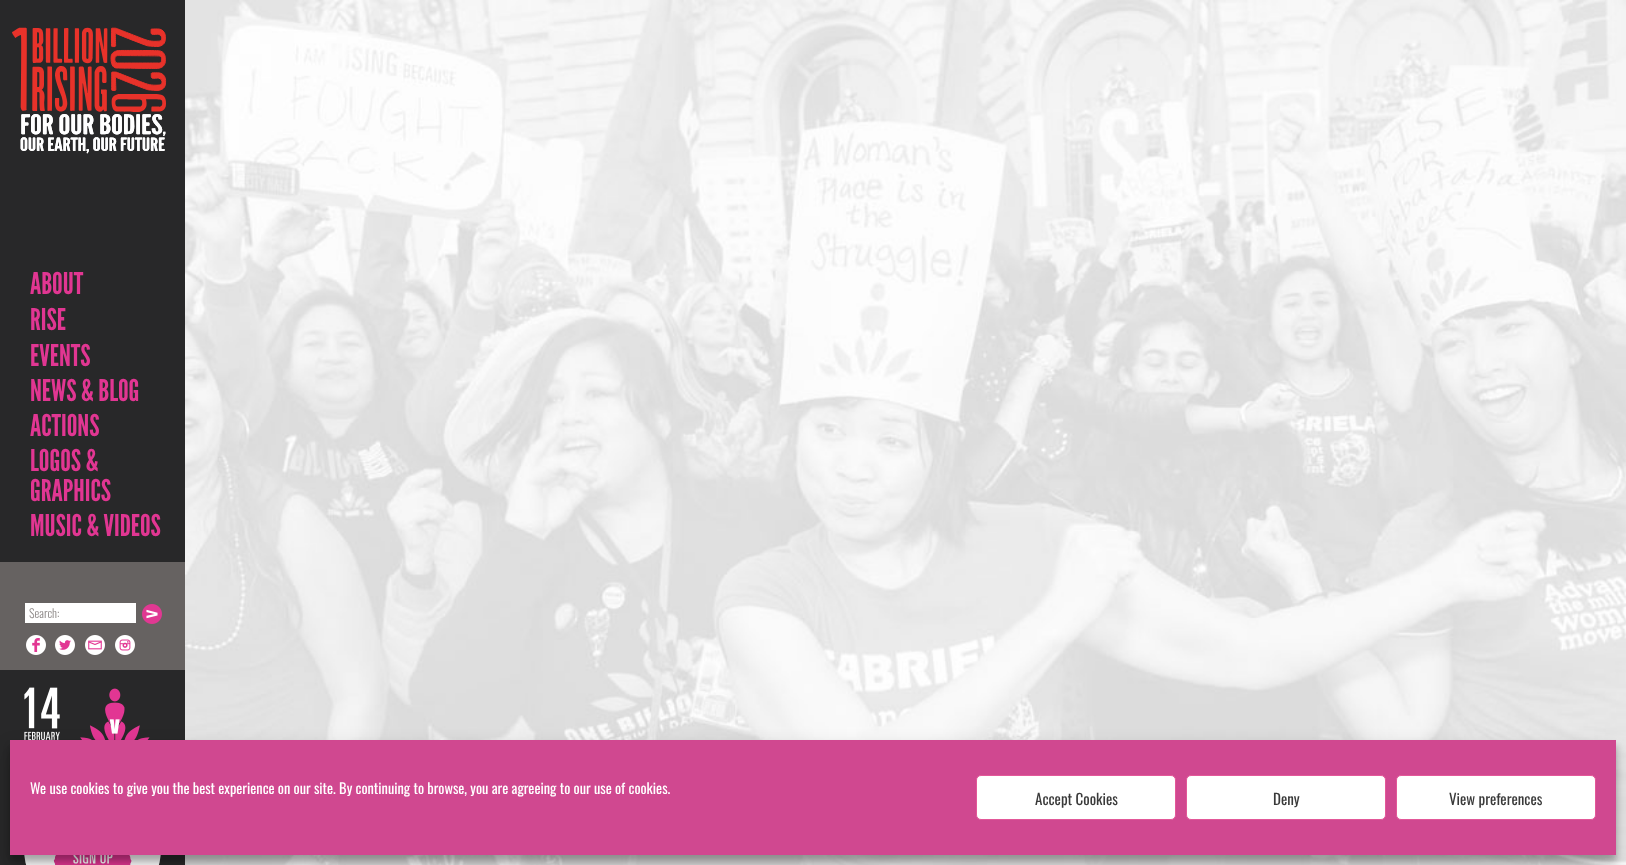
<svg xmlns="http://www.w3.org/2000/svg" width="1626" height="865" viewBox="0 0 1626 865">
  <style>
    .t1 { font: 30px League Gothic; fill: #e13692; }
    .t2 { font: 300 12px Oswald; fill: #8d8887; }
    .t3 { font: 14.4px Oswald; fill: #fff; }
    .t4 { font: 15px Oswald; fill: #3a3a3a; }
  </style>
  <rect width="100%" height="100%" fill="#282829"/>
  <image x="12" y="27" width="155" height="127" href="images/1.png"/>
  <text x="30" y="294" class="t1">ABOUT</text>
  <text x="30" y="330" class="t1">RISE</text>
  <text x="30" y="366" class="t1">EVENTS</text>
  <text x="30" y="401" class="t1">NEWS &amp; BLOG</text>
  <text x="30" y="436" class="t1">ACTIONS</text>
  <text x="30" y="471" class="t1">LOGOS &amp;</text>
  <text x="30" y="501" class="t1">GRAPHICS</text>
  <text x="30" y="536" class="t1">MUSIC &amp; VIDEOS</text>
  <rect x="0" y="562" width="185" height="108" fill="#666261"/>
  <rect x="25" y="603" width="111" height="20" fill="#fff"/>
  <text x="29" y="618" class="t2">Search:</text>
  <image x="142" y="604" width="20" height="20" href="images/2.png"/>
  <image x="26" y="635" width="20" height="20" href="images/3.png"/>
  <image x="55" y="635" width="20" height="20" href="images/4.png"/>
  <image x="85" y="635" width="20" height="20" href="images/5.png"/>
  <image x="115" y="635" width="20" height="20" href="images/6.png"/>
  <image x="24" y="687" width="126" height="53" href="images/7.png"/>
  <image x="24" y="855" width="137" height="10" href="images/8.png"/>
  <image x="185" y="0" width="1441" height="865" href="images/9.png"/>
  <rect x="10" y="746" width="1606" height="115" fill="#0000003b" filter="blur(3px)"/>
  <rect x="10" y="750" width="1606" height="115" fill="#00000030" filter="blur(10px)"/>
  <rect x="10" y="740" width="1606" height="115" fill="#d04890"/>
  <text x="30" y="794" class="t3">We use cookies to give you the best experience on our site. By continuing to browse, you are agreeing to our use of cookies.</text>
  <rect x="976.5" y="775.5" width="199" height="44" rx="4.5" fill="#fff" stroke="#e35899"/>
  <text x="1035" y="805" class="t4">Accept Cookies</text>
  <rect x="1186.5" y="775.5" width="199" height="44" rx="4.5" fill="#fff" stroke="#e35899"/>
  <text x="1273" y="805" class="t4">Deny</text>
  <rect x="1396.5" y="775.5" width="199" height="44" rx="4.5" fill="#fff" stroke="#e35899"/>
  <text x="1449" y="805" class="t4">View preferences</text>
</svg>
